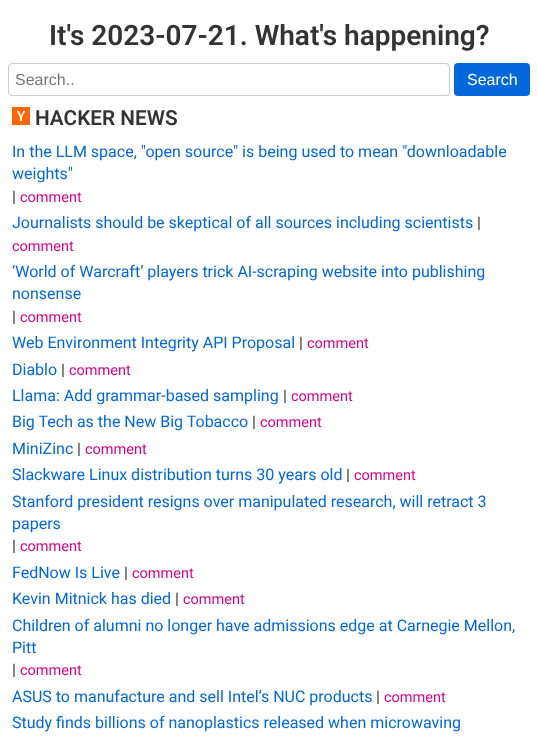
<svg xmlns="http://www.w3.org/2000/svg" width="538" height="743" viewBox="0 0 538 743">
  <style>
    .t1 { font: 600 28px Roboto; fill: #333; }
    .t2 { font: 16px Liberation Sans; fill: #757575; }
    .t3 { font: 16px Liberation Sans; fill: #fff; }
    .t4 { font: 600 20.75px Roboto; fill: #333; }
    .t5 { font: 16px Roboto; fill: #0167db; }
    .t6 { font: 16px Roboto; fill: #333; }
    .t7 { font: 14.5px Roboto; fill: #d60586; }
  </style>
  <rect width="100%" height="100%" fill="#fff"/>
  <text x="49" y="45" class="t1">It's 2023-07-21. What's happening?</text>
  <rect x="8.5" y="63.5" width="441" height="32" rx="3.5" fill="none" stroke="#ccc"/>
  <text x="15" y="85" class="t2">Search..</text>
  <rect x="454" y="63" width="76" height="33" rx="4" fill="#0167db"/>
  <text x="467" y="85" class="t3">Search</text>
  <image x="12" y="107" width="18" height="18" href="images/1.png"/>
  <text x="35" y="125" class="t4">HACKER NEWS</text>
  <text x="12" y="157" class="t5">In the LLM space, "open source" is being used to mean "downloadable</text>
  <text x="12" y="179" class="t5">weights"</text>
  <text x="12" y="202" class="t6">|</text>
  <text x="20" y="202" class="t7">comment</text>
  <text x="12" y="228" class="t5">Journalists should be skeptical of all sources including scientists</text>
  <text x="477" y="228" class="t6">|</text>
  <text x="12" y="251" class="t7">comment</text>
  <text x="12" y="277" class="t5">‘World of Warcraft’ players trick AI-scraping website into publishing</text>
  <text x="12" y="299" class="t5">nonsense</text>
  <text x="12" y="322" class="t6">|</text>
  <text x="20" y="322" class="t7">comment</text>
  <text x="12" y="348" class="t5">Web Environment Integrity API Proposal</text>
  <text x="299" y="348" class="t6">|</text>
  <text x="307" y="348" class="t7">comment</text>
  <text x="12" y="375" class="t5">Diablo</text>
  <text x="61" y="375" class="t6">|</text>
  <text x="69" y="375" class="t7">comment</text>
  <text x="12" y="401" class="t5">Llama: Add grammar-based sampling</text>
  <text x="283" y="401" class="t6">|</text>
  <text x="291" y="401" class="t7">comment</text>
  <text x="12" y="427" class="t5">Big Tech as the New Big Tobacco</text>
  <text x="252" y="427" class="t6">|</text>
  <text x="260" y="427" class="t7">comment</text>
  <text x="12" y="454" class="t5">MiniZinc</text>
  <text x="77" y="454" class="t6">|</text>
  <text x="85" y="454" class="t7">comment</text>
  <text x="12" y="480" class="t5">Slackware Linux distribution turns 30 years old</text>
  <text x="346" y="480" class="t6">|</text>
  <text x="354" y="480" class="t7">comment</text>
  <text x="12" y="507" class="t5">Stanford president resigns over manipulated research, will retract 3</text>
  <text x="12" y="529" class="t5">papers</text>
  <text x="12" y="551" class="t6">|</text>
  <text x="20" y="551" class="t7">comment</text>
  <text x="12" y="578" class="t5">FedNow Is Live</text>
  <text x="124" y="578" class="t6">|</text>
  <text x="132" y="578" class="t7">comment</text>
  <text x="12" y="604" class="t5">Kevin Mitnick has died</text>
  <text x="175" y="604" class="t6">|</text>
  <text x="183" y="604" class="t7">comment</text>
  <text x="12" y="631" class="t5">Children of alumni no longer have admissions edge at Carnegie Mellon,</text>
  <text x="12" y="653" class="t5">Pitt</text>
  <text x="12" y="675" class="t6">|</text>
  <text x="20" y="675" class="t7">comment</text>
  <text x="12" y="702" class="t5">ASUS to manufacture and sell Intel’s NUC products</text>
  <text x="376" y="702" class="t6">|</text>
  <text x="384" y="702" class="t7">comment</text>
  <text x="12" y="728" class="t5">Study finds billions of nanoplastics released when microwaving</text>
</svg>
